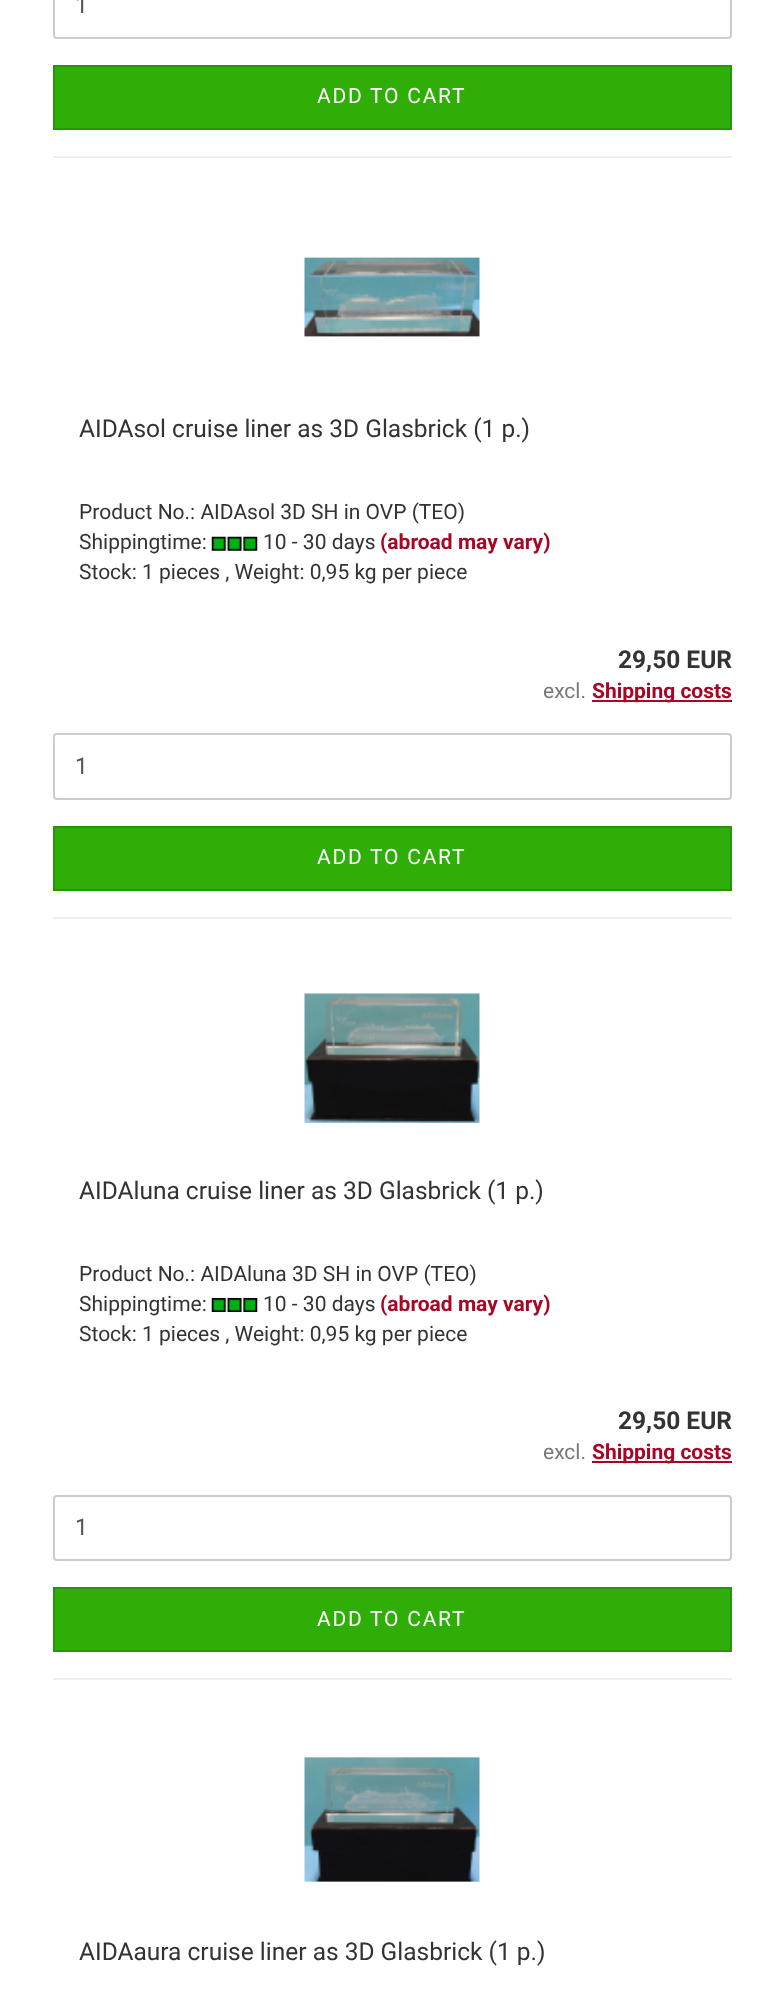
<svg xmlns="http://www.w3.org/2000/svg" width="784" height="1996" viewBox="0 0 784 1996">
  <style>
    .t1 { font: 23px Roboto; fill: #555; }
    .t2 { font: 21px Roboto; letter-spacing: 1.75px; fill: #fff; }
    .t3 { font: 24.5px Roboto; fill: #333; }
    .t4 { font: 21px Roboto; fill: #333; }
    .t5 { font: bold 21px Roboto; fill: #a70725; }
    .t6 { font: bold 24.5px Roboto; fill: #333; }
    .t7 { font: 21px Roboto; fill: #777; }
  </style>
  <rect width="100%" height="100%" fill="#fff"/>
  <rect x="53" y="156" width="679" height="2" fill="#eee"/>
  <rect x="54" y="-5" width="677" height="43" rx="3" fill="none" stroke="#ccc" stroke-width="2"/>
  <text x="75" y="13" class="t1">1</text>
  <rect x="54" y="66" width="677" height="63" fill="#2eae06" stroke="#279505" stroke-width="2"/>
  <text x="317" y="103" class="t2">ADD TO CART</text>
  <rect x="53" y="917" width="679" height="2" fill="#eee"/>
  <image x="304" y="257" width="176" height="80" href="images/1.png"/>
  <text x="79" y="437" class="t3">AIDAsol cruise liner as 3D Glasbrick (1 p.)</text>
  <text x="79" y="519" class="t4">Product No.: AIDAsol 3D SH in OVP (TEO)</text>
  <text x="79" y="549" class="t4">Shippingtime:</text>
  <image x="211" y="536" width="47" height="15" href="images/2.png"/>
  <text x="263" y="549" class="t4">10 - 30 days</text>
  <text x="380" y="549" class="t5">(abroad may vary)</text>
  <text x="79" y="579" class="t4">Stock: 1 pieces , Weight: 0,95 kg per piece</text>
  <text x="618" y="668" class="t6">29,50 EUR</text>
  <text x="543" y="698" class="t7">excl.</text>
  <rect x="592" y="700" width="140" height="2" fill="#a70725"/>
  <text x="592" y="698" class="t5">Shipping costs</text>
  <rect x="54" y="734" width="677" height="65" rx="3" fill="none" stroke="#ccc" stroke-width="2"/>
  <text x="75" y="774" class="t1">1</text>
  <rect x="54" y="827" width="677" height="63" fill="#2eae06" stroke="#279505" stroke-width="2"/>
  <text x="317" y="864" class="t2">ADD TO CART</text>
  <rect x="53" y="1678" width="679" height="2" fill="#eee"/>
  <image x="304" y="993" width="176" height="130" href="images/3.png"/>
  <text x="79" y="1199" class="t3">AIDAluna cruise liner as 3D Glasbrick (1 p.)</text>
  <text x="79" y="1281" class="t4">Product No.: AIDAluna 3D SH in OVP (TEO)</text>
  <text x="79" y="1311" class="t4">Shippingtime:</text>
  <image x="211" y="1298" width="47" height="14" href="images/4.png"/>
  <text x="263" y="1311" class="t4">10 - 30 days</text>
  <text x="380" y="1311" class="t5">(abroad may vary)</text>
  <text x="79" y="1341" class="t4">Stock: 1 pieces , Weight: 0,95 kg per piece</text>
  <text x="618" y="1429" class="t6">29,50 EUR</text>
  <text x="543" y="1459" class="t7">excl.</text>
  <rect x="592" y="1461" width="140" height="2" fill="#a70725"/>
  <text x="592" y="1459" class="t5">Shipping costs</text>
  <rect x="54" y="1496" width="677" height="64" rx="3" fill="none" stroke="#ccc" stroke-width="2"/>
  <text x="75" y="1535" class="t1">1</text>
  <rect x="54" y="1588" width="677" height="63" fill="#2eae06" stroke="#279505" stroke-width="2"/>
  <text x="317" y="1626" class="t2">ADD TO CART</text>
  <image x="304" y="1757" width="176" height="125" href="images/5.png"/>
  <text x="79" y="1960" class="t3">AIDAaura cruise liner as 3D Glasbrick (1 p.)</text>
</svg>
